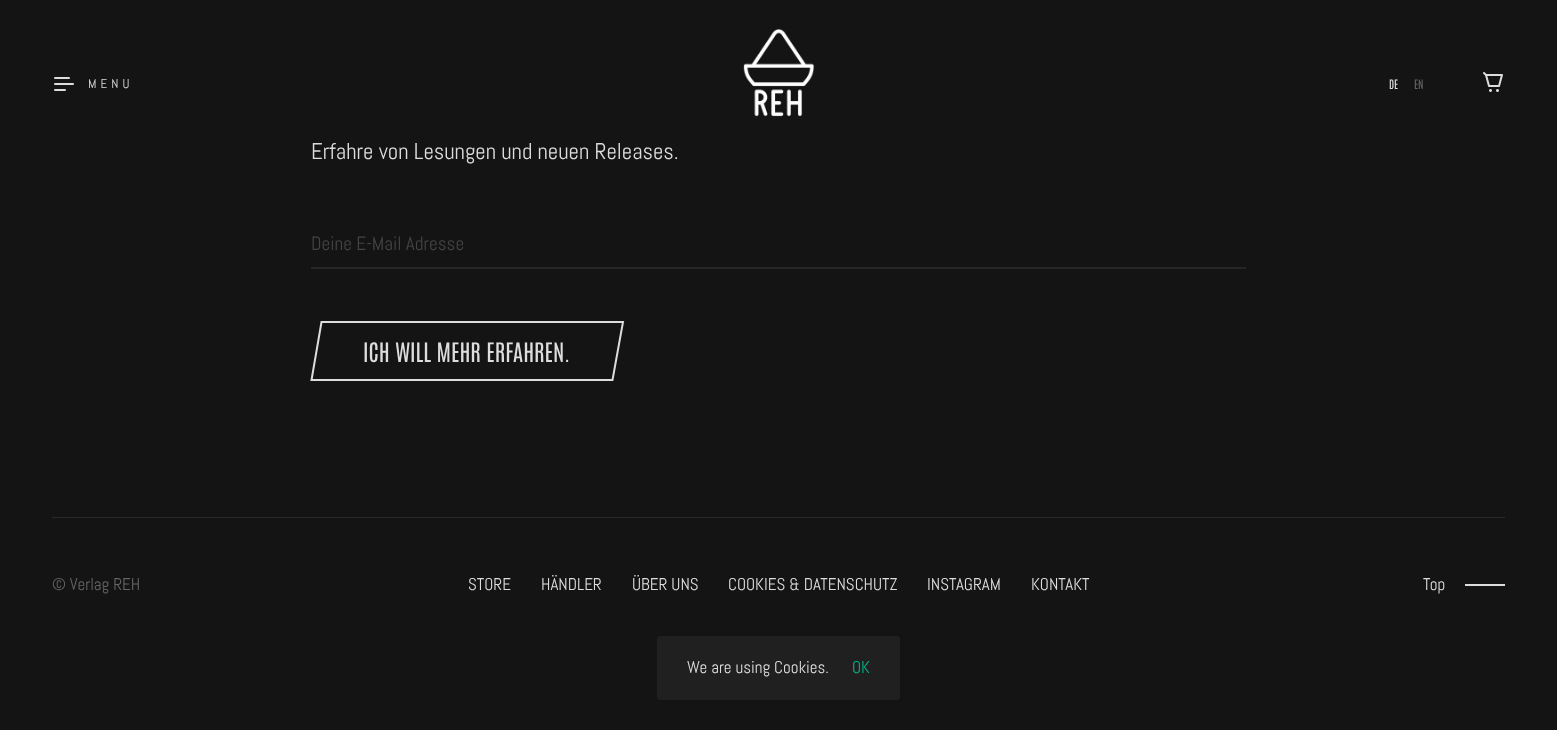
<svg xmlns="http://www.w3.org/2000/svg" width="1557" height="730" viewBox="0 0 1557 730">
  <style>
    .t1 { font: 13px Abel; letter-spacing: 4px; fill: #ddd; }
    .t2 { font: 11px Antonio; fill: #ddd; }
    .t3 { font: 11px Antonio; fill: #646464; }
    .t4 { font: 22.8px Abel; fill: #ddd; }
    .t5 { font: 19.25px Abel; fill: #444; }
    .t6 { font: 22.8px Antonio; fill: #ddd; }
    .t7 { font: 17px Abel; fill: #646464; }
    .t8 { font: 17px Abel; fill: #ddd; }
    .t9 { font: 17px Abel; fill: #07b284; }
  </style>
  <rect width="100%" height="100%" fill="#141414"/>
  <path d="M55 78H69M55 84H73M55 90H65" fill="none" stroke="#ddd" stroke-width="2" stroke-linecap="round"/>
  <text x="88" y="88" class="t1">MENU</text>
  <image x="743" y="29" width="72" height="88" href="images/1.png"/>
  <text x="1389" y="89" class="t2">DE</text>
  <text x="1414" y="89" class="t3">EN</text>
  <image x="1483" y="72" width="20" height="20" href="images/2.png"/>
  <text x="311" y="159" class="t4">Erfahre von Lesungen und neuen Releases.</text>
  <rect x="311" y="267" width="935" height="2" fill="#262626"/>
  <text x="311" y="250" class="t5">Deine E-Mail Adresse</text>
  <path d="M321.5 322H623L612.5 380H311.5Z" fill="none" stroke="#ddd" stroke-width="2"/>
  <text x="363" y="362" class="t6">ICH WILL MEHR ERFAHREN.</text>
  <rect x="52" y="517" width="1453" height="1" fill="#282828"/>
  <text x="52" y="590" class="t7">© Verlag REH</text>
  <text x="468" y="590" class="t8">STORE</text>
  <text x="541" y="590" class="t8">HÄNDLER</text>
  <text x="632" y="590" class="t8">ÜBER UNS</text>
  <text x="728" y="590" class="t8">COOKIES &amp; DATENSCHUTZ</text>
  <text x="927" y="590" class="t8">INSTAGRAM</text>
  <text x="1031" y="590" class="t8">KONTAKT</text>
  <text x="1423" y="590" class="t8">Top</text>
  <rect x="1465" y="584" width="40" height="2" fill="#ddd"/>
  <rect x="657" y="636" width="243" height="64" rx="3" fill="#202020"/>
  <text x="687" y="673" class="t8">We are using Cookies.</text>
  <text x="852" y="673" class="t9">OK</text>
</svg>
